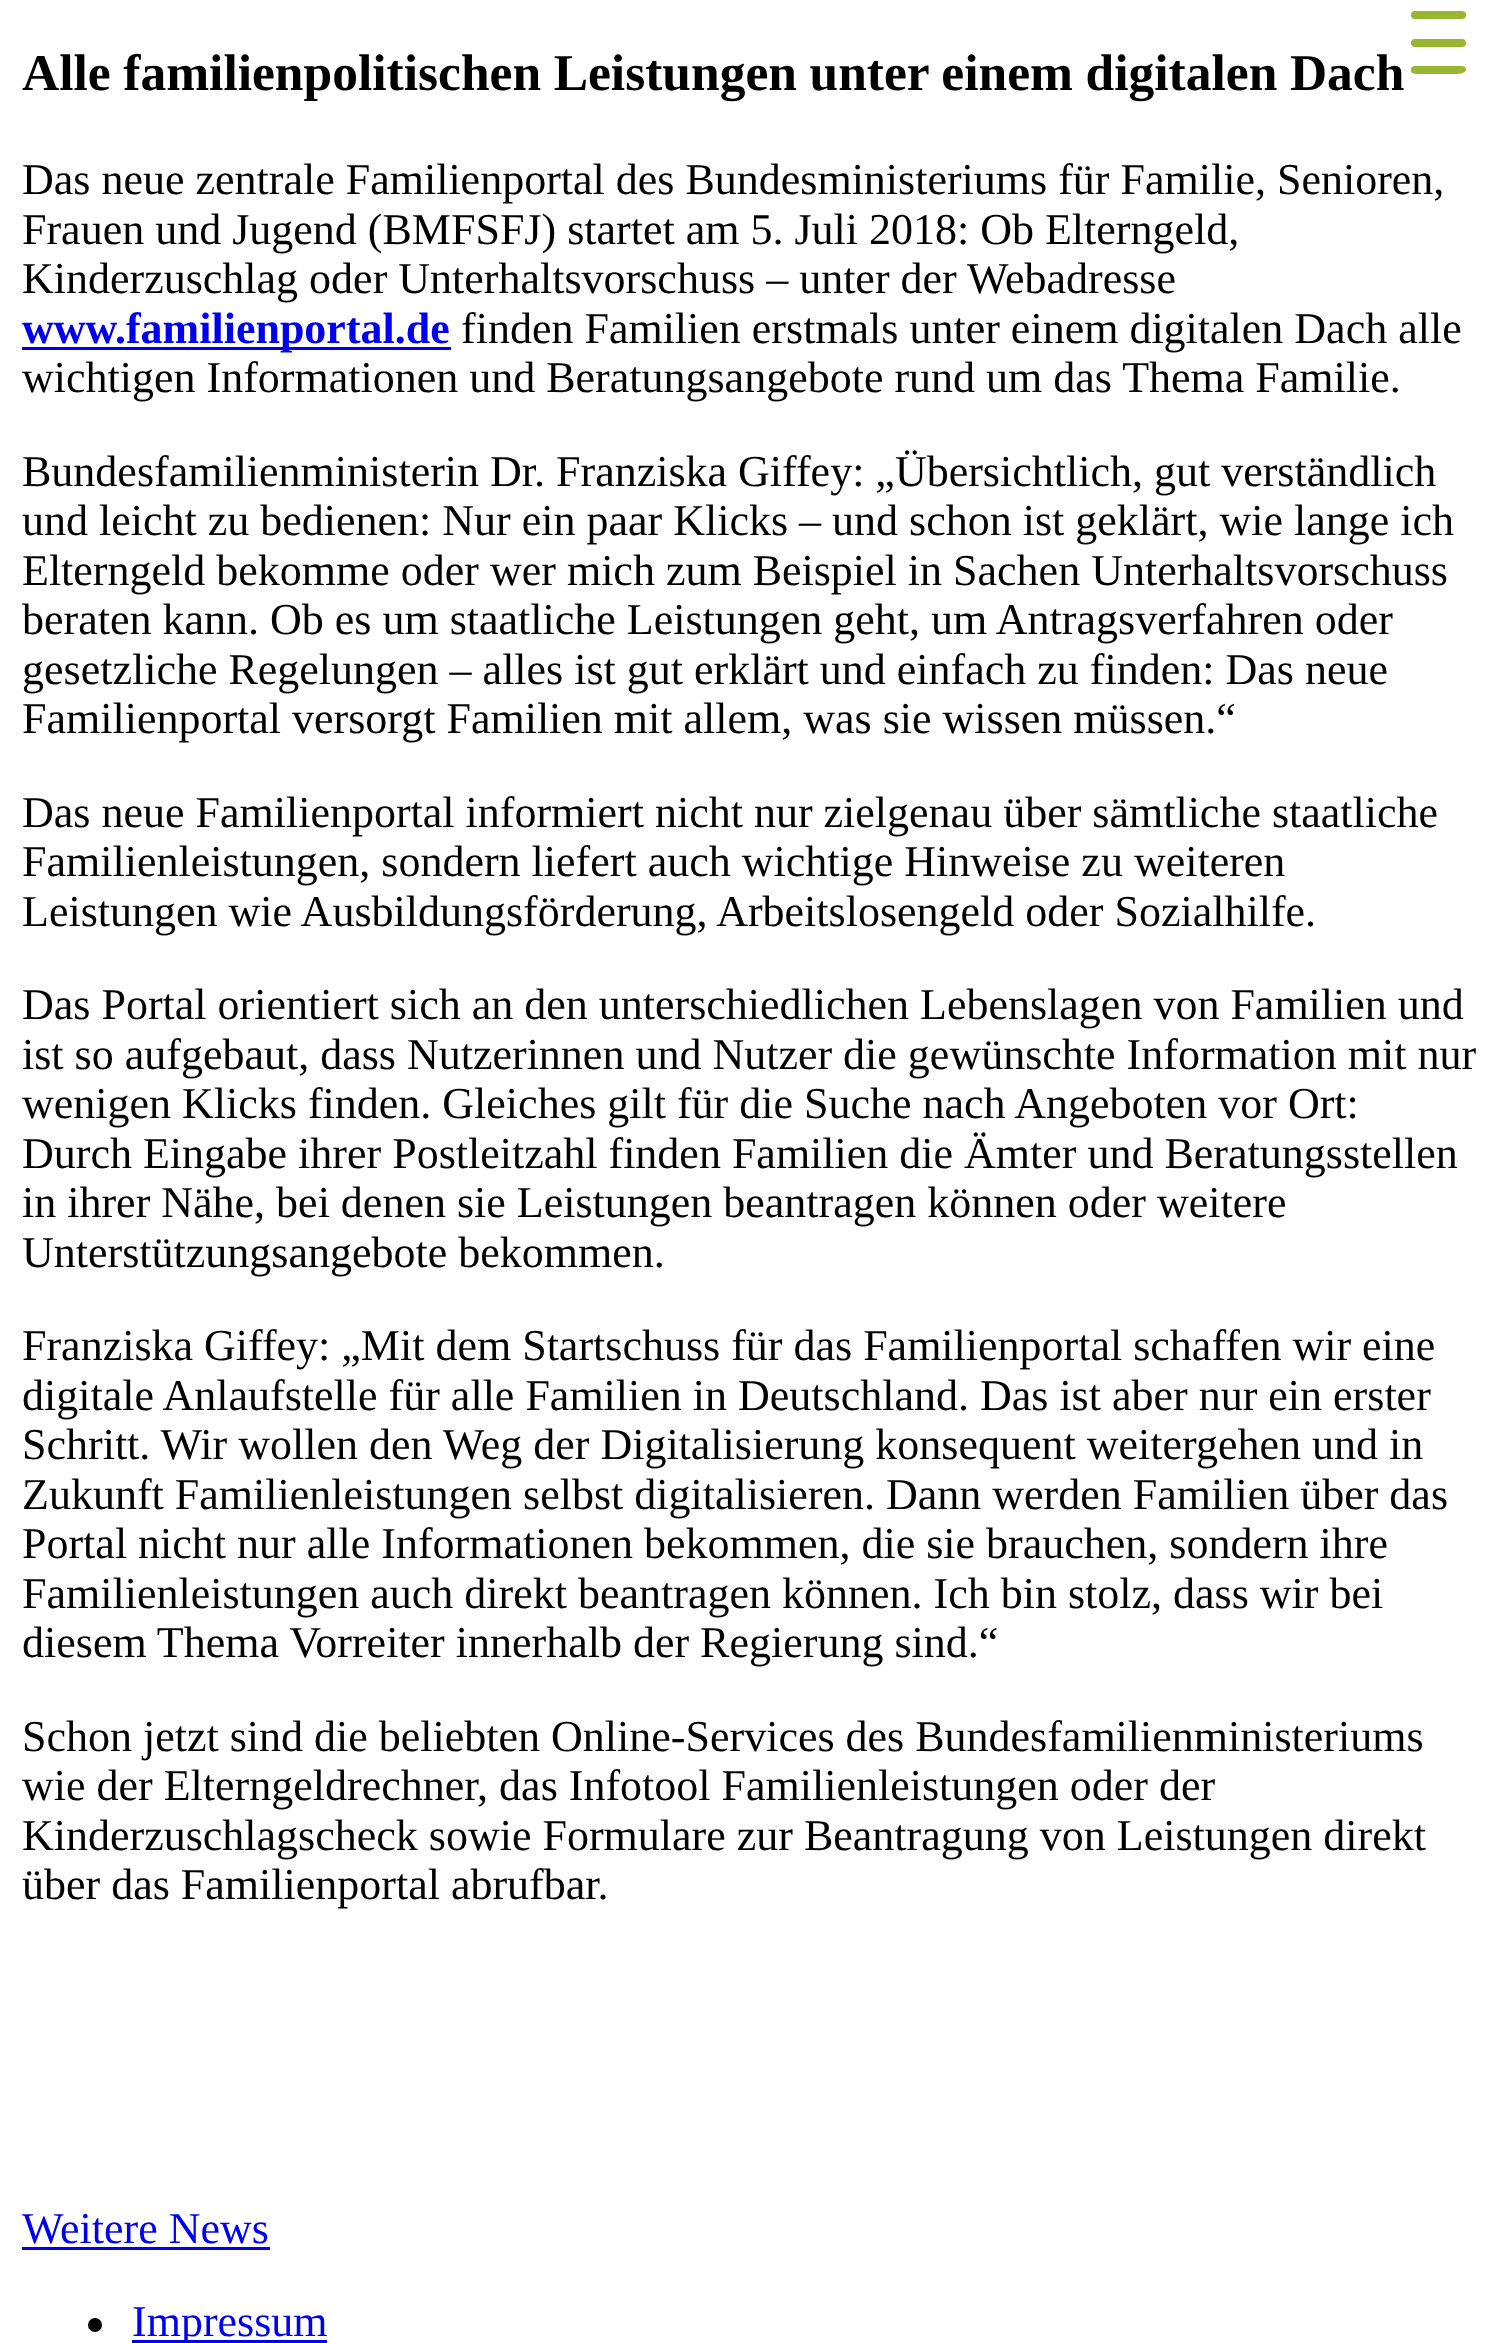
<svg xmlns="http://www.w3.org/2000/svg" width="1499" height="2343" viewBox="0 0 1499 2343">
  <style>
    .t1 { font: bold 51.5px Liberation Serif; fill: #000; }
    .t2 { font: 44px Liberation Serif; fill: #000; }
    .t3 { font: bold 44px Liberation Serif; fill: #00e; }
    .t4 { font: 44px Liberation Serif; fill: #00e; }
  </style>
  <defs>
    <clipPath id="clip1"><rect x="1403" y="6" width="68" height="68" rx="14"/></clipPath>
  </defs>
  <rect width="100%" height="100%" fill="#fff"/>
  <rect x="1411" y="39" width="55" height="8" rx="4" fill="#98b631"/>
  <rect x="1411" y="11" width="55" height="8" rx="4" fill="#98b631"/>
  <g clip-path="url(#clip1)">
    <rect x="1411" y="66" width="55" height="8" rx="4" fill="#98b631"/>
  </g>
  <text x="22" y="90" word-spacing="-0.25" class="t1">Alle familienpolitischen Leistungen unter einem digitalen Dach</text>
  <text x="22" y="194" class="t2">Das neue zentrale Familienportal des Bundesministeriums für Familie, Senioren,</text>
  <text x="22" y="244" class="t2">Frauen und Jugend (BMFSFJ) startet am 5. Juli 2018: Ob Elterngeld,</text>
  <text x="22" y="293" class="t2">Kinderzuschlag oder Unterhaltsvorschuss – unter der Webadresse</text>
  <rect x="22" y="347" width="429" height="3" fill="#00e"/>
  <text x="22" y="343" class="t3">www.familienportal.de</text>
  <text x="461" y="343" class="t2">finden Familien erstmals unter einem digitalen Dach alle</text>
  <text x="22" y="392" class="t2">wichtigen Informationen und Beratungsangebote rund um das Thema Familie.</text>
  <text x="22" y="486" class="t2">Bundesfamilienministerin Dr. Franziska Giffey: „Übersichtlich, gut verständlich</text>
  <text x="22" y="535" class="t2">und leicht zu bedienen: Nur ein paar Klicks – und schon ist geklärt, wie lange ich</text>
  <text x="22" y="585" class="t2">Elterngeld bekomme oder wer mich zum Beispiel in Sachen Unterhaltsvorschuss</text>
  <text x="22" y="634" class="t2">beraten kann. Ob es um staatliche Leistungen geht, um Antragsverfahren oder</text>
  <text x="22" y="684" class="t2">gesetzliche Regelungen – alles ist gut erklärt und einfach zu finden: Das neue</text>
  <text x="22" y="733" class="t2">Familienportal versorgt Familien mit allem, was sie wissen müssen.“</text>
  <text x="22" y="827" class="t2">Das neue Familienportal informiert nicht nur zielgenau über sämtliche staatliche</text>
  <text x="22" y="876" class="t2">Familienleistungen, sondern liefert auch wichtige Hinweise zu weiteren</text>
  <text x="22" y="926" class="t2">Leistungen wie Ausbildungsförderung, Arbeitslosengeld oder Sozialhilfe.</text>
  <text x="22" y="1019" class="t2">Das Portal orientiert sich an den unterschiedlichen Lebenslagen von Familien und</text>
  <text x="22" y="1069" class="t2">ist so aufgebaut, dass Nutzerinnen und Nutzer die gewünschte Information mit nur</text>
  <text x="22" y="1118" class="t2">wenigen Klicks finden. Gleiches gilt für die Suche nach Angeboten vor Ort:</text>
  <text x="22" y="1168" class="t2">Durch Eingabe ihrer Postleitzahl finden Familien die Ämter und Beratungsstellen</text>
  <text x="22" y="1217" class="t2">in ihrer Nähe, bei denen sie Leistungen beantragen können oder weitere</text>
  <text x="22" y="1267" class="t2">Unterstützungsangebote bekommen.</text>
  <text x="22" y="1360" class="t2">Franziska Giffey: „Mit dem Startschuss für das Familienportal schaffen wir eine</text>
  <text x="22" y="1410" class="t2">digitale Anlaufstelle für alle Familien in Deutschland. Das ist aber nur ein erster</text>
  <text x="22" y="1459" class="t2">Schritt. Wir wollen den Weg der Digitalisierung konsequent weitergehen und in</text>
  <text x="22" y="1509" class="t2">Zukunft Familienleistungen selbst digitalisieren. Dann werden Familien über das</text>
  <text x="22" y="1558" class="t2">Portal nicht nur alle Informationen bekommen, die sie brauchen, sondern ihre</text>
  <text x="22" y="1608" class="t2">Familienleistungen auch direkt beantragen können. Ich bin stolz, dass wir bei</text>
  <text x="22" y="1657" class="t2">diesem Thema Vorreiter innerhalb der Regierung sind.“</text>
  <text x="22" y="1751" class="t2">Schon jetzt sind die beliebten Online-Services des Bundesfamilienministeriums</text>
  <text x="22" y="1800" class="t2">wie der Elterngeldrechner, das Infotool Familienleistungen oder der</text>
  <text x="22" y="1850" class="t2">Kinderzuschlagscheck sowie Formulare zur Beantragung von Leistungen direkt</text>
  <text x="22" y="1899" class="t2">über das Familienportal abrufbar.</text>
  <text x="22" y="2243" class="t4">Weitere News</text>
  <rect x="22" y="2247" width="248" height="3" fill="#00e"/>
  <circle cx="95" cy="2325" r="7" fill="#000"/>
  <rect x="132" y="2340" width="195" height="3" fill="#00e"/>
  <text x="132" y="2336" class="t4">Impressum</text>
</svg>
